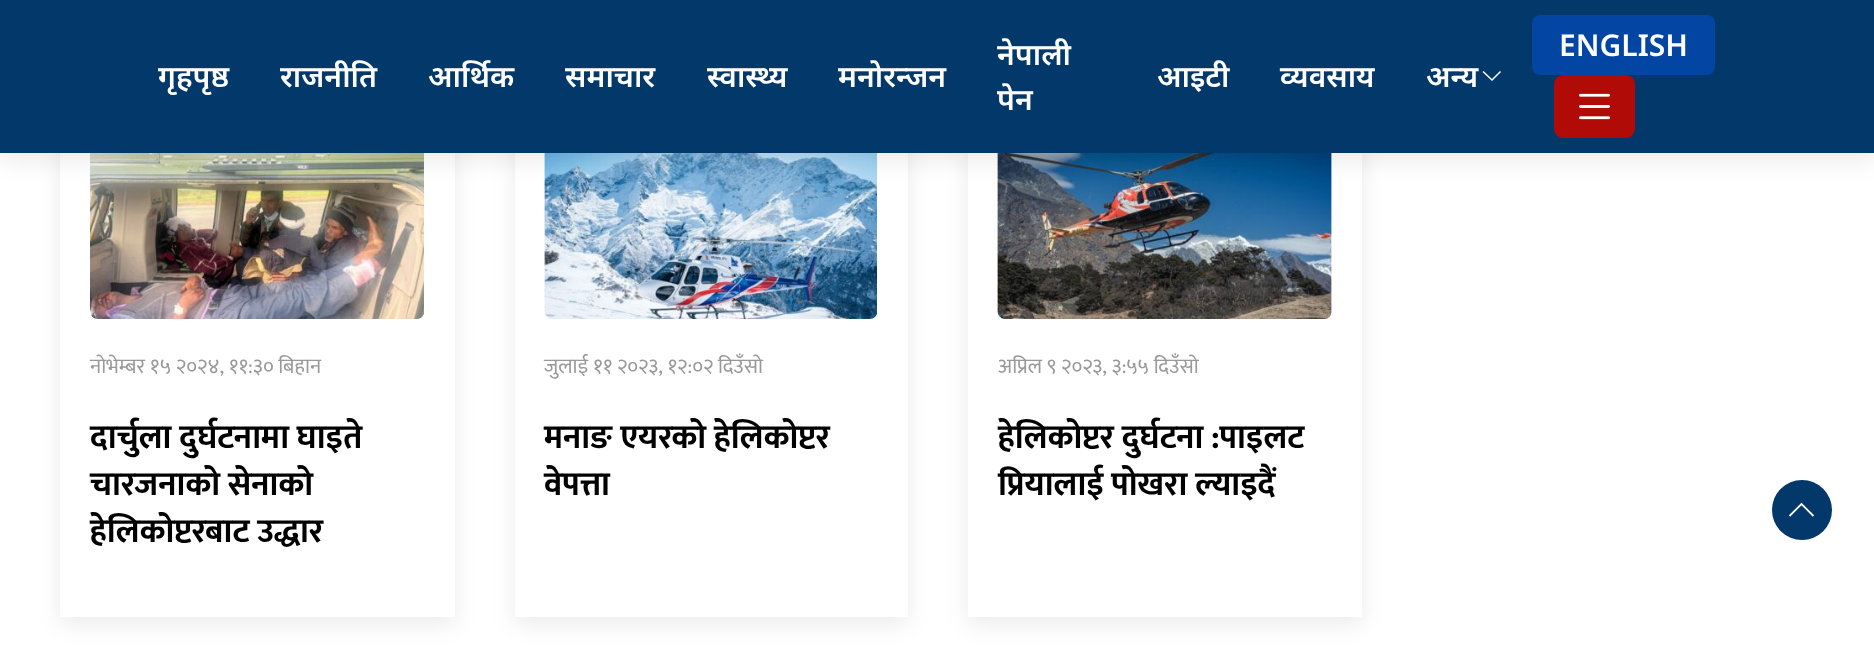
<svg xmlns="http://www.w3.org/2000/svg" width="1874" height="650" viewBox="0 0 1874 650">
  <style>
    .t1 { font: 600 30px Noto Sans; fill: #fff; }
    .t2 { font: 21px Mukta; fill: #999; }
    .t3 { font: bold 33.5px Mukta; fill: #000; }
  </style>
  <rect width="100%" height="100%" fill="#fff"/>
  <rect x="60" y="113" width="395" height="511" fill="#00000014" filter="blur(11px)"/>
  <rect x="60" y="153" width="395" height="464" fill="#fff"/>
  <image x="90" y="153" width="334" height="166" href="images/2.png"/>
  <rect x="515" y="113" width="393" height="511" fill="#00000014" filter="blur(11px)"/>
  <rect x="515" y="153" width="393" height="464" fill="#fff"/>
  <image x="544" y="153" width="333" height="166" href="images/3.png"/>
  <rect x="968" y="113" width="394" height="511" fill="#00000014" filter="blur(11px)"/>
  <rect x="968" y="153" width="394" height="464" fill="#fff"/>
  <image x="997" y="153" width="335" height="166" href="images/4.png"/>
  <rect x="0" y="8" width="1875" height="153" fill="#00000014" filter="blur(11px)"/>
  <rect x="0" y="0" width="1874" height="153" fill="#02386a"/>
  <text x="158" y="87" class="t1">गृहपृष्ठ</text>
  <text x="280" y="87" class="t1">राजनीति</text>
  <text x="428" y="87" class="t1">आर्थिक</text>
  <text x="565" y="87" class="t1">समाचार</text>
  <text x="707" y="87" class="t1">स्वास्थ्य</text>
  <text x="838" y="87" class="t1">मनोरन्जन</text>
  <text x="997" y="65" class="t1">नेपाली</text>
  <text x="997" y="110" class="t1">पेन</text>
  <text x="1157" y="87" class="t1">आइटी</text>
  <text x="1280" y="87" class="t1">व्यवसाय</text>
  <text x="1426" y="87" class="t1">अन्य</text>
  <path d="M1500.5 71.5L1492 80L1483 71.5" fill="none" stroke="#fff" stroke-width="1.5"/>
  <rect x="1532" y="15" width="183" height="60" rx="8" fill="#0245a3"/>
  <text x="1559" y="56" class="t1">ENGLISH</text>
  <rect x="1554" y="75" width="81" height="63" rx="9" fill="#b10b07"/>
  <image x="1579" y="93" width="31" height="27" href="images/1.png"/>
  <text x="90" y="373" class="t2">नोभेम्बर १५ २०२४, ११:३० बिहान</text>
  <text x="90" y="448" class="t3">दार्चुला दुर्घटनामा घाइते</text>
  <text x="90" y="495" class="t3">चारजनाको सेनाको</text>
  <text x="90" y="542" class="t3">हेलिकोप्टरबाट उद्धार</text>
  <text x="544" y="373" class="t2">जुलाई ११ २०२३, १२:०२ दिउँसो</text>
  <text x="544" y="448" class="t3">मनाङ एयरको हेलिकोप्टर</text>
  <text x="544" y="495" class="t3">वेपत्ता</text>
  <text x="998" y="373" class="t2">अप्रिल ९ २०२३, ३:५५ दिउँसो</text>
  <text x="998" y="448" class="t3">हेलिकोप्टर दुर्घटना :पाइलट</text>
  <text x="998" y="495" class="t3">प्रियालाई पोखरा ल्याइदैं</text>
  <circle cx="1802" cy="510" r="30" fill="#02386a"/>
  <path d="M1789.5 516L1801.5 504L1813.5 516" fill="none" stroke="#fff" stroke-width="1.8"/>
</svg>
